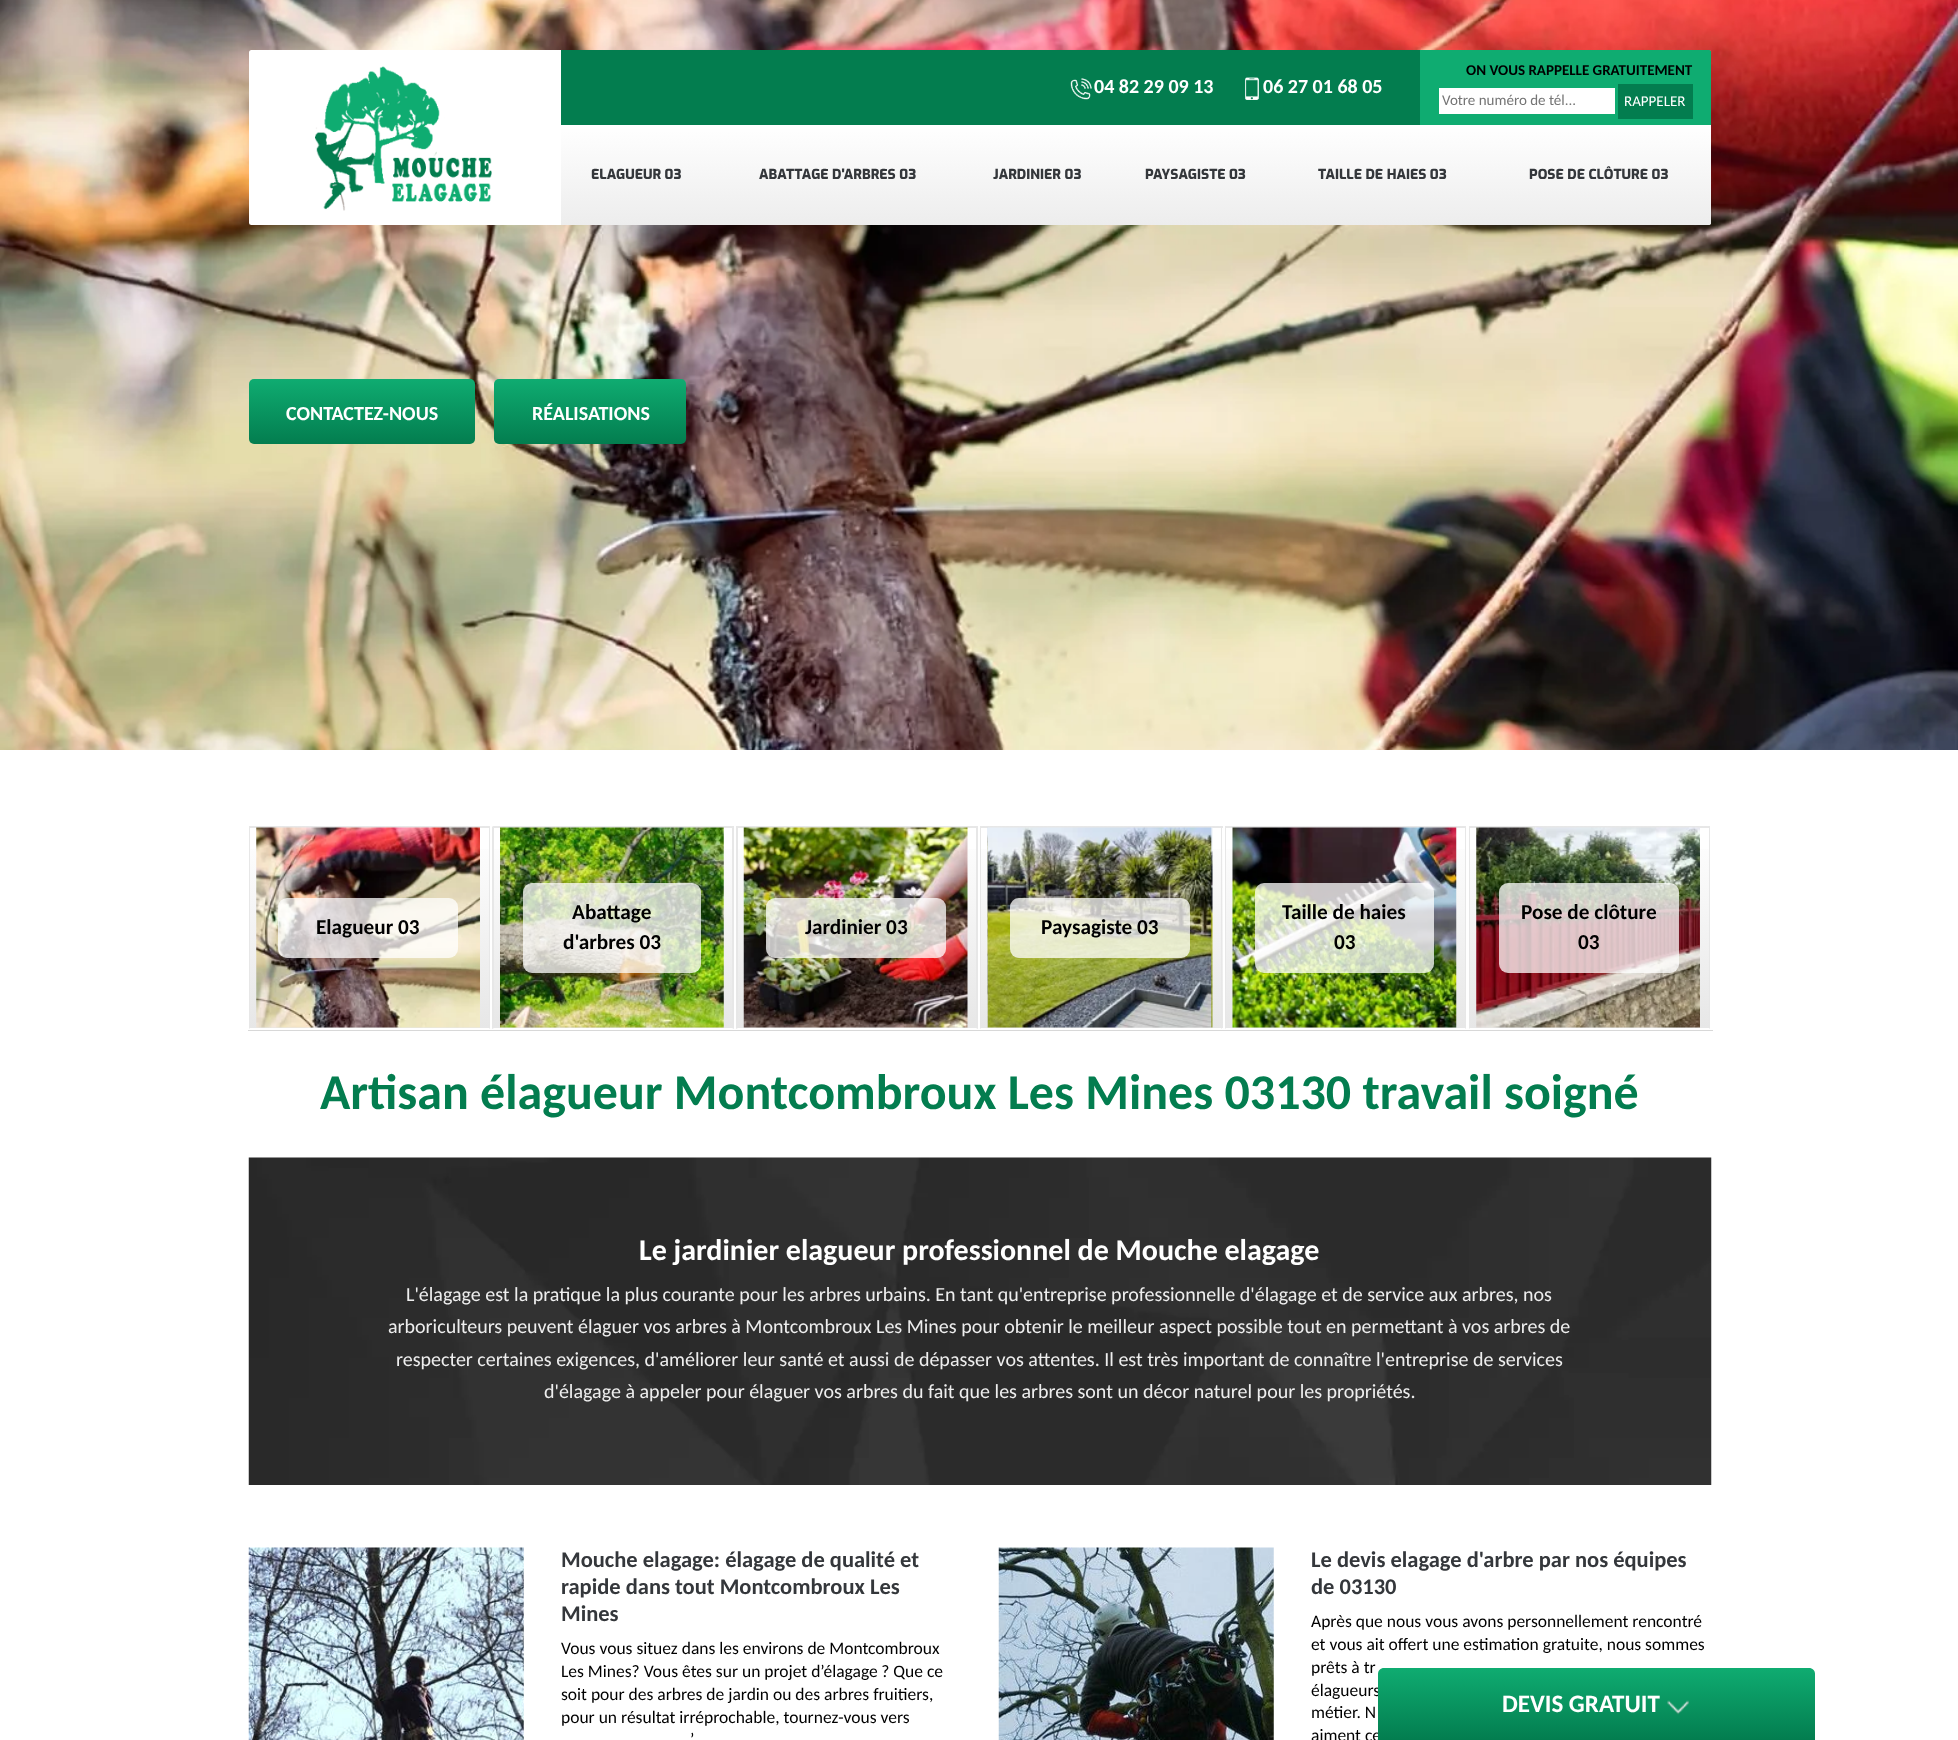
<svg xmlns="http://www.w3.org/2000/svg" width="1958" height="1740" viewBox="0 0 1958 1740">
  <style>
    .t1 { font: bold 20px Carlito; fill: #fff; }
    .t2 { font: bold 15px Carlito; fill: #000; }
    .t3 { font: 15px Carlito; fill: #757575; }
    .t4 { font: 15px Carlito; fill: #fff; }
    .t5 { font: 800 13.75px Exo; fill: #34373b; }
    .t6 { font: bold 21.25px Carlito; fill: #000; }
    .t7 { font: bold 50px Carlito; fill: #037d4f; }
    .t8 { font: bold 30px Carlito; fill: #fff; }
    .t9 { font: 20px Carlito; fill: #eee; }
    .t10 { font: bold 22.5px Carlito; fill: #34373b; }
    .t11 { font: 17.5px Carlito; fill: #000; }
    .t12 { font: bold 25px Carlito; fill: #fff; }
  </style>
  <defs>
    <linearGradient id="g1" gradientUnits="userSpaceOnUse" x1="1136" y1="125" x2="1136" y2="225"><stop offset="0" stop-color="#fff"/><stop offset="1" stop-color="#ededed"/></linearGradient>
    <linearGradient id="g2" gradientUnits="userSpaceOnUse" x1="362" y1="379" x2="362" y2="444"><stop offset="0" stop-color="#0fac71"/><stop offset="1" stop-color="#037d4f"/></linearGradient>
    <linearGradient id="g3" gradientUnits="userSpaceOnUse" x1="590" y1="379" x2="590" y2="444"><stop offset="0" stop-color="#0fac71"/><stop offset="1" stop-color="#037d4f"/></linearGradient>
    <linearGradient id="g4" gradientUnits="userSpaceOnUse" x1="369" y1="628" x2="369" y2="828"><stop offset="0" stop-color="#fff"/><stop offset="1" stop-color="#e7e7e7"/></linearGradient>
    <linearGradient id="g5" gradientUnits="userSpaceOnUse" x1="369" y1="828" x2="369" y2="1028"><stop offset="0" stop-color="#fff"/><stop offset="1" stop-color="#e7e7e7"/></linearGradient>
    <linearGradient id="g6" gradientUnits="userSpaceOnUse" x1="613" y1="628" x2="613" y2="828"><stop offset="0" stop-color="#fff"/><stop offset="1" stop-color="#e7e7e7"/></linearGradient>
    <linearGradient id="g7" gradientUnits="userSpaceOnUse" x1="613" y1="828" x2="613" y2="1028"><stop offset="0" stop-color="#fff"/><stop offset="1" stop-color="#e7e7e7"/></linearGradient>
    <linearGradient id="g8" gradientUnits="userSpaceOnUse" x1="857" y1="628" x2="857" y2="828"><stop offset="0" stop-color="#fff"/><stop offset="1" stop-color="#e7e7e7"/></linearGradient>
    <linearGradient id="g9" gradientUnits="userSpaceOnUse" x1="857" y1="828" x2="857" y2="1028"><stop offset="0" stop-color="#fff"/><stop offset="1" stop-color="#e7e7e7"/></linearGradient>
    <linearGradient id="g10" gradientUnits="userSpaceOnUse" x1="1101" y1="628" x2="1101" y2="828"><stop offset="0" stop-color="#fff"/><stop offset="1" stop-color="#e7e7e7"/></linearGradient>
    <linearGradient id="g11" gradientUnits="userSpaceOnUse" x1="1101" y1="828" x2="1101" y2="1028"><stop offset="0" stop-color="#fff"/><stop offset="1" stop-color="#e7e7e7"/></linearGradient>
    <linearGradient id="g12" gradientUnits="userSpaceOnUse" x1="1346" y1="628" x2="1346" y2="828"><stop offset="0" stop-color="#fff"/><stop offset="1" stop-color="#e7e7e7"/></linearGradient>
    <linearGradient id="g13" gradientUnits="userSpaceOnUse" x1="1346" y1="828" x2="1346" y2="1028"><stop offset="0" stop-color="#fff"/><stop offset="1" stop-color="#e7e7e7"/></linearGradient>
    <linearGradient id="g14" gradientUnits="userSpaceOnUse" x1="1589" y1="628" x2="1589" y2="828"><stop offset="0" stop-color="#fff"/><stop offset="1" stop-color="#e7e7e7"/></linearGradient>
    <linearGradient id="g15" gradientUnits="userSpaceOnUse" x1="1589" y1="828" x2="1589" y2="1028"><stop offset="0" stop-color="#fff"/><stop offset="1" stop-color="#e7e7e7"/></linearGradient>
    <linearGradient id="g16" gradientUnits="userSpaceOnUse" x1="1596" y1="1668" x2="1596" y2="1740"><stop offset="0" stop-color="#0fac71"/><stop offset="1" stop-color="#037d4f"/></linearGradient>
  </defs>
  <rect width="100%" height="100%" fill="#fff"/>
  <image x="0" y="0" width="1958" height="750" href="images/4.png"/>
  <rect x="249" y="50" width="1462" height="175" rx="2.5" fill="#fff"/>
  <image x="315" y="66" width="177" height="145" href="images/1.png"/>
  <path d="M561 50H1708.5C1710 50 1711 51 1711 52.5V125H561Z" fill="#037d4f"/>
  <image x="1070" y="78" width="22" height="22" href="images/2.png"/>
  <text x="1094" y="93" class="t1">04 82 29 09 13</text>
  <image x="1245" y="77" width="14" height="23" href="images/3.png"/>
  <text x="1263" y="93" class="t1">06 27 01 68 05</text>
  <path d="M1420 50H1708.5C1710 50 1711 51 1711 52.5V125H1420Z" fill="#0fac71"/>
  <text x="1466" y="75" class="t2">ON VOUS RAPPELLE GRATUITEMENT</text>
  <rect x="1439" y="88" width="176" height="26" fill="#fff"/>
  <text x="1442" y="105" class="t3">Votre numéro de tél...</text>
  <rect x="1618" y="84" width="75" height="35" fill="#037d4f"/>
  <text x="1624" y="106" class="t4">RAPPELER</text>
  <path d="M561 125H1711V222.5C1711 224 1710 225 1708.5 225H561Z" fill="url(#g1)"/>
  <text x="591" y="179" class="t5">ELAGUEUR 03</text>
  <text x="759" y="179" class="t5">ABATTAGE D'ARBRES 03</text>
  <text x="993" y="179" class="t5">JARDINIER 03</text>
  <text x="1145" y="179" class="t5">PAYSAGISTE 03</text>
  <text x="1318" y="179" class="t5">TAILLE DE HAIES 03</text>
  <text x="1529" y="179" class="t5">POSE DE CLÔTURE 03</text>
  <rect x="249" y="379" width="226" height="65" rx="5" fill="url(#g2)"/>
  <text x="286" y="420" class="t1">CONTACTEZ-NOUS</text>
  <rect x="494" y="379" width="192" height="65" rx="5" fill="url(#g3)"/>
  <text x="532" y="420" class="t1">RÉALISATIONS</text>
  <rect x="248" y="1030" width="1465" height="1" fill="#d8d8d8"/>
  <rect x="249" y="826" width="241" height="2" fill="url(#g4)"/>
  <rect x="250" y="849" width="239" height="179" fill="url(#g5)"/>
  <path d="M490 826V1029L489 1028V828Z" fill="#e7e7e7"/>
  <path d="M249 1029V826L250 828V1028Z" fill="#e7e7e7"/>
  <image x="256" y="827" width="224" height="201" href="images/5.png"/>
  <rect x="278" y="898" width="180" height="60" rx="9" fill="#ffffffbf"/>
  <text x="316" y="934" class="t6">Elagueur 03</text>
  <rect x="493" y="826" width="241" height="2" fill="url(#g6)"/>
  <rect x="494" y="849" width="238" height="179" fill="url(#g7)"/>
  <path d="M734 826V1029L732 1028V828Z" fill="#e7e7e7"/>
  <path d="M492 1029V826L494 828V1028Z" fill="#e7e7e7"/>
  <image x="500" y="827" width="224" height="201" href="images/6.png"/>
  <rect x="523" y="883" width="178" height="90" rx="9" fill="#ffffffbf"/>
  <text x="572" y="919" class="t6">Abattage</text>
  <text x="563" y="949" class="t6">d'arbres 03</text>
  <rect x="736" y="826" width="242" height="2" fill="url(#g8)"/>
  <rect x="738" y="849" width="238" height="179" fill="url(#g9)"/>
  <path d="M978 826V1029L976 1028V828Z" fill="#e7e7e7"/>
  <path d="M736 1029V826L738 828V1028Z" fill="#e7e7e7"/>
  <image x="743" y="827" width="225" height="201" href="images/7.png"/>
  <rect x="766" y="898" width="180" height="60" rx="9" fill="#ffffffbf"/>
  <text x="805" y="934" class="t6">Jardinier 03</text>
  <rect x="980" y="826" width="243" height="2" fill="url(#g10)"/>
  <rect x="981" y="849" width="242" height="179" fill="url(#g11)"/>
  <path d="M1222 826V1029L1221 1028V828Z" fill="#e7e7e7"/>
  <path d="M980 1029V826L981 828V1028Z" fill="#e7e7e7"/>
  <image x="987" y="827" width="226" height="201" href="images/8.png"/>
  <rect x="1010" y="898" width="180" height="60" rx="9" fill="#ffffffbf"/>
  <text x="1041" y="934" class="t6">Paysagiste 03</text>
  <rect x="1225" y="826" width="241" height="2" fill="url(#g12)"/>
  <rect x="1226" y="849" width="239" height="179" fill="url(#g13)"/>
  <path d="M1466 826V1029L1465 1028V828Z" fill="#e7e7e7"/>
  <path d="M1225 1029V826L1226 828V1028Z" fill="#e7e7e7"/>
  <image x="1232" y="827" width="225" height="201" href="images/9.png"/>
  <rect x="1255" y="883" width="179" height="90" rx="9" fill="#ffffffbf"/>
  <text x="1282" y="919" class="t6">Taille de haies</text>
  <text x="1334" y="949" class="t6">03</text>
  <rect x="1469" y="826" width="241" height="2" fill="url(#g14)"/>
  <rect x="1470" y="849" width="239" height="179" fill="url(#g15)"/>
  <path d="M1710 826V1029L1709 1028V828Z" fill="#e7e7e7"/>
  <path d="M1469 1029V826L1470 828V1028Z" fill="#e7e7e7"/>
  <image x="1476" y="827" width="224" height="201" href="images/10.png"/>
  <rect x="1499" y="883" width="180" height="90" rx="9" fill="#ffffffbf"/>
  <text x="1521" y="919" class="t6">Pose de clôture</text>
  <text x="1578" y="949" class="t6">03</text>
  <text x="320" y="1109" class="t7">Artisan élagueur Montcombroux Les Mines 03130 travail soigné</text>
  <image x="248" y="1157" width="1464" height="328" href="images/11.png"/>
  <text x="639" y="1260" class="t8">Le jardinier elagueur professionnel de Mouche elagage</text>
  <text x="406" y="1301" class="t9">L'élagage est la pratique la plus courante pour les arbres urbains. En tant qu'entreprise professionnelle d'élagage et de service aux arbres, nos</text>
  <text x="388" y="1333" class="t9">arboriculteurs peuvent élaguer vos arbres à Montcombroux Les Mines pour obtenir le meilleur aspect possible tout en permettant à vos arbres de</text>
  <text x="396" y="1366" class="t9">respecter certaines exigences, d'améliorer leur santé et aussi de dépasser vos attentes. Il est très important de connaître l'entreprise de services</text>
  <text x="544" y="1398" class="t9">d'élagage à appeler pour élaguer vos arbres du fait que les arbres sont un décor naturel pour les propriétés.</text>
  <image x="248" y="1547" width="276" height="193" href="images/12.png"/>
  <text x="561" y="1567" class="t10">Mouche elagage: élagage de qualité et</text>
  <text x="561" y="1594" class="t10">rapide dans tout Montcombroux Les</text>
  <text x="561" y="1621" class="t10">Mines</text>
  <text x="561" y="1654" class="t11">Vous vous situez dans les environs de Montcombroux</text>
  <text x="561" y="1677" class="t11">Les Mines? Vous êtes sur un projet d’élagage ? Que ce</text>
  <text x="561" y="1700" class="t11">soit pour des arbres de jardin ou des arbres fruitiers,</text>
  <text x="561" y="1723" class="t11">pour un résultat irréprochable, tournez-vous vers</text>
  <text x="690" y="1745" class="t11">’</text>
  <image x="998" y="1547" width="276" height="193" href="images/13.png"/>
  <text x="1311" y="1567" class="t10">Le devis elagage d'arbre par nos équipes</text>
  <text x="1311" y="1594" class="t10">de 03130</text>
  <text x="1311" y="1627" class="t11">Après que nous vous avons personnellement rencontré</text>
  <text x="1311" y="1650" class="t11">et vous ait offert une estimation gratuite, nous sommes</text>
  <text x="1311" y="1673" class="t11">prêts à tr</text>
  <text x="1311" y="1696" class="t11">élagueurs</text>
  <text x="1311" y="1718" class="t11">métier. N</text>
  <text x="1311" y="1741" class="t11">aiment ce</text>
  <path d="M1384 1668H1809C1812.5 1668 1815 1670.5 1815 1674V1740H1378V1674C1378 1670.5 1380.5 1668 1384 1668Z" fill="url(#g16)"/>
  <text x="1502" y="1712" class="t12">DEVIS GRATUIT</text>
  <image x="1667" y="1700" width="22" height="15" href="images/14.png"/>
</svg>
